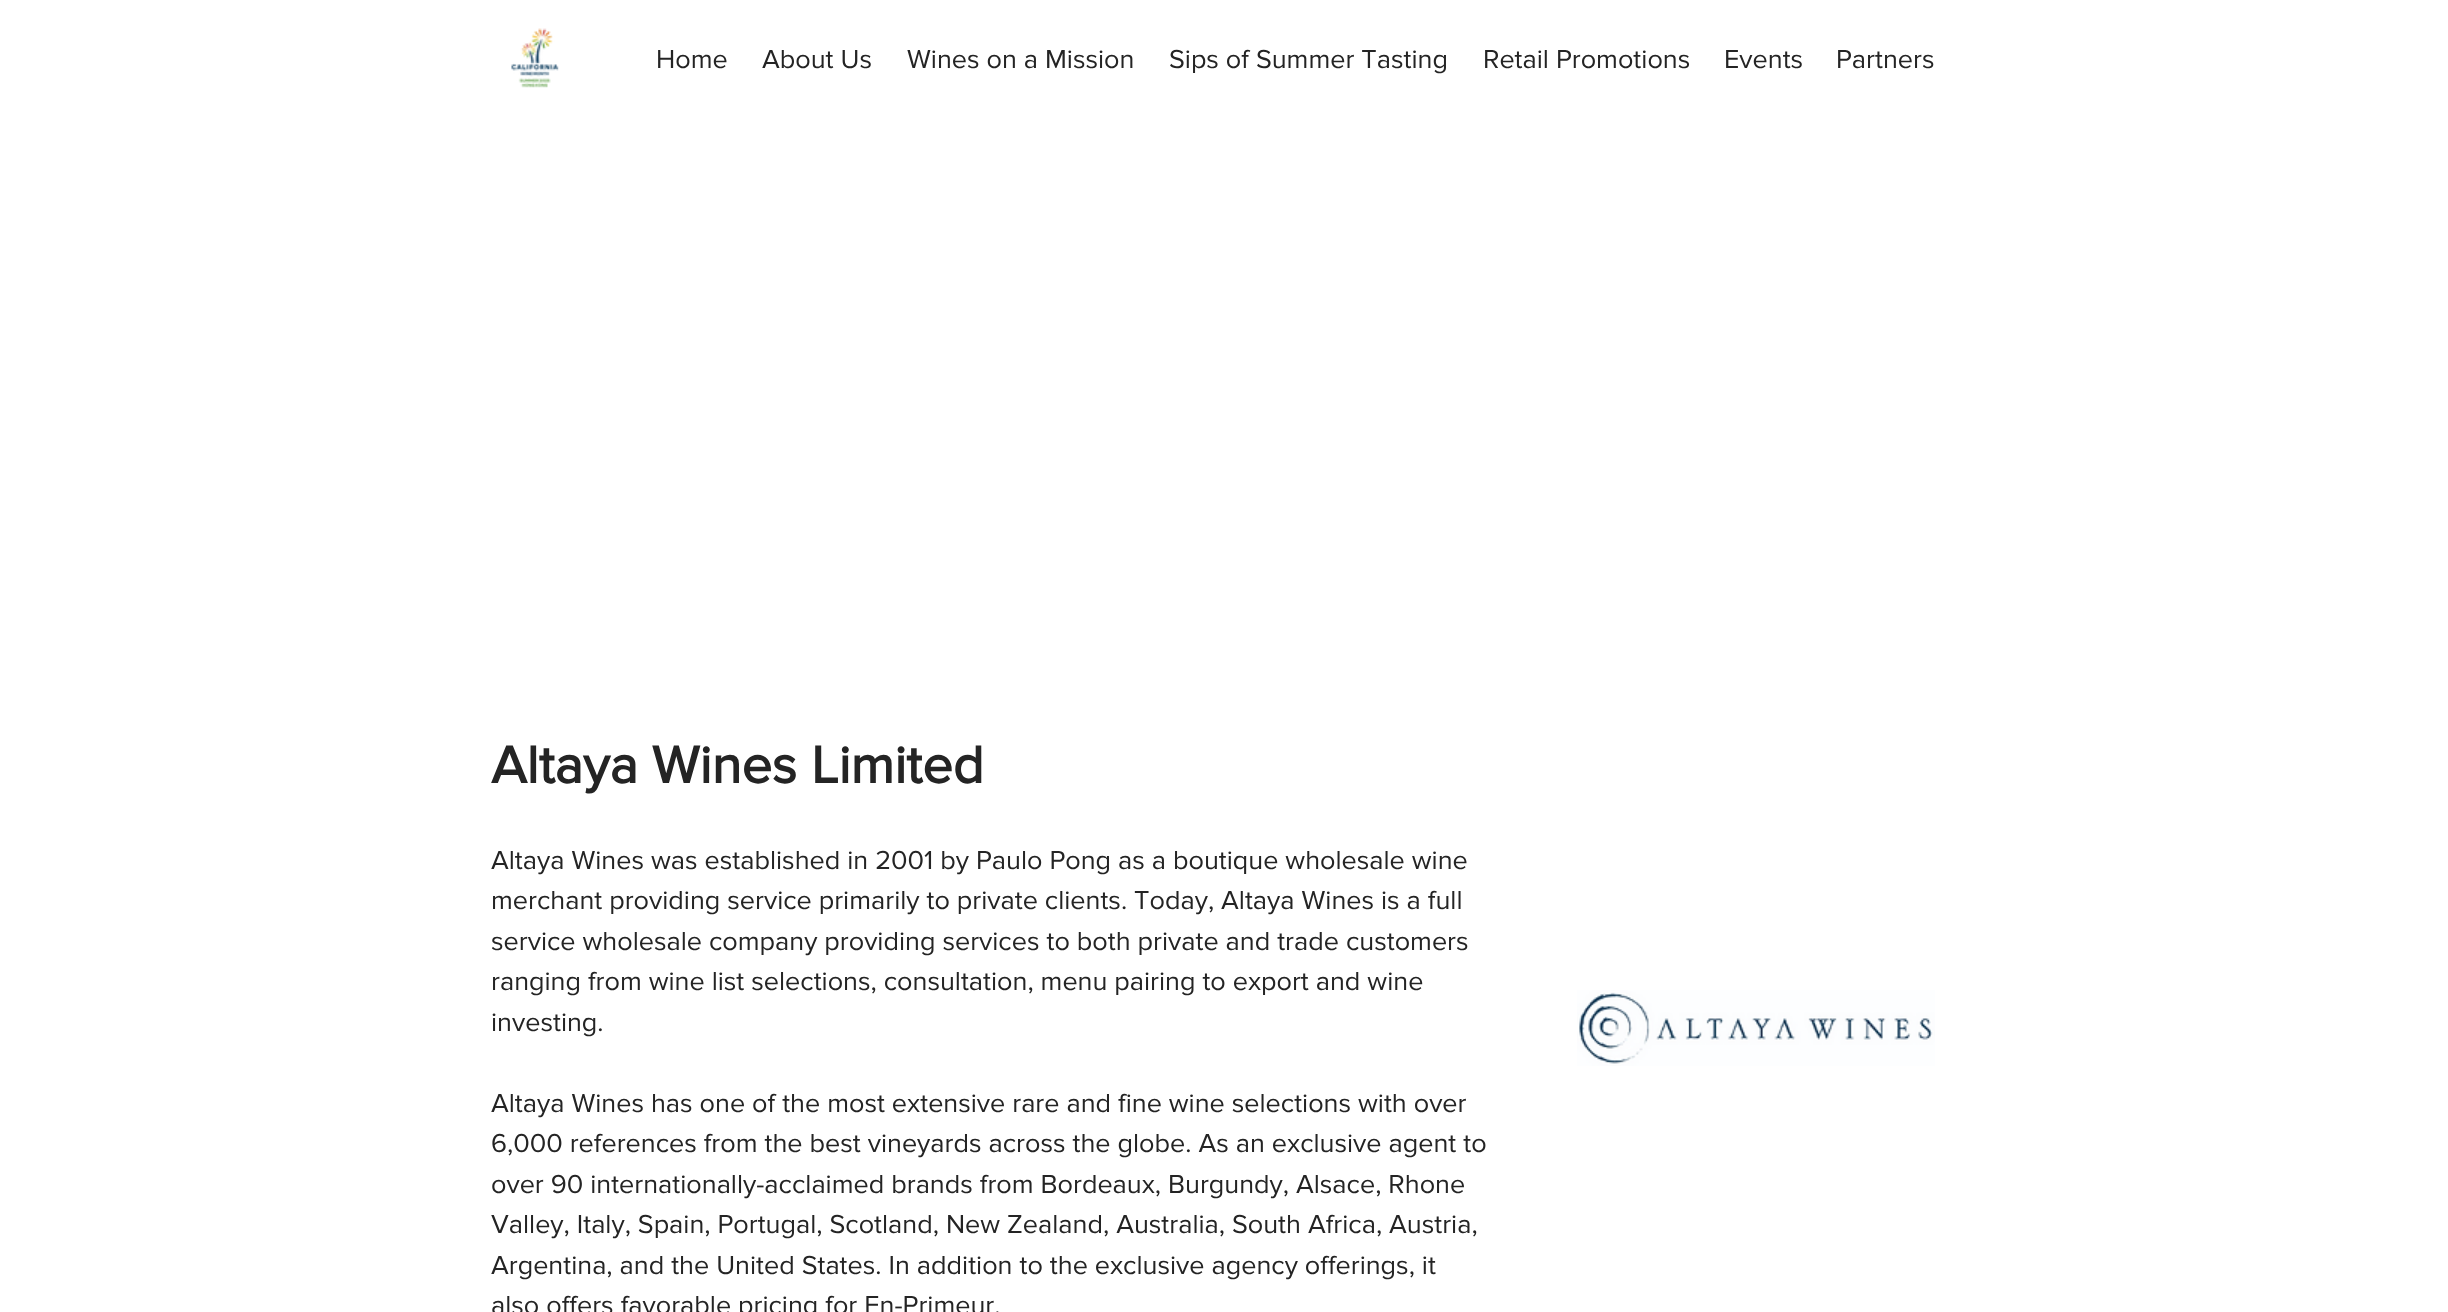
<svg xmlns="http://www.w3.org/2000/svg" width="2448" height="1312" viewBox="0 0 2448 1312">
  <style>
    .t1 { font: 27px 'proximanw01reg'; fill: #242424; }
    .t2 { font: bold 54px 'proximanw01reg'; fill: #242424; }
  </style>
  <rect width="100%" height="100%" fill="#fff"/>
  <image x="511" y="28" width="48" height="60" href="images/1.png"/>
  <text x="656" y="68" class="t1">Home</text>
  <text x="762" y="68" class="t1">About Us</text>
  <text x="907" y="68" class="t1">Wines on a Mission</text>
  <text x="1169" y="68" class="t1">Sips of Summer Tasting</text>
  <text x="1483" y="68" class="t1">Retail Promotions</text>
  <text x="1724" y="68" class="t1">Events</text>
  <text x="1836" y="68" class="t1">Partners</text>
  <text x="491" y="783" class="t2">Altaya Wines Limited</text>
  <text x="491" y="869" class="t1">Altaya Wines was established in 2001 by Paulo Pong as a boutique wholesale wine</text>
  <text x="491" y="909" class="t1">merchant providing service primarily to private clients. Today, Altaya Wines is a full</text>
  <text x="491" y="950" class="t1">service wholesale company providing services to both private and trade customers</text>
  <text x="491" y="990" class="t1">ranging from wine list selections, consultation, menu pairing to export and wine</text>
  <text x="491" y="1031" class="t1">investing.</text>
  <text x="491" y="1112" class="t1">Altaya Wines has one of the most extensive rare and fine wine selections with over</text>
  <text x="491" y="1152" class="t1">6,000 references from the best vineyards across the globe. As an exclusive agent to</text>
  <text x="491" y="1193" class="t1">over 90 internationally-acclaimed brands from Bordeaux, Burgundy, Alsace, Rhone</text>
  <text x="491" y="1233" class="t1">Valley, Italy, Spain, Portugal, Scotland, New Zealand, Australia, South Africa, Austria,</text>
  <text x="491" y="1274" class="t1">Argentina, and the United States. In addition to the exclusive agency offerings, it</text>
  <text x="491" y="1314" class="t1">also offers favorable pricing for En-Primeur.</text>
  <image x="1577" y="990" width="358" height="76" href="images/2.png"/>
</svg>
